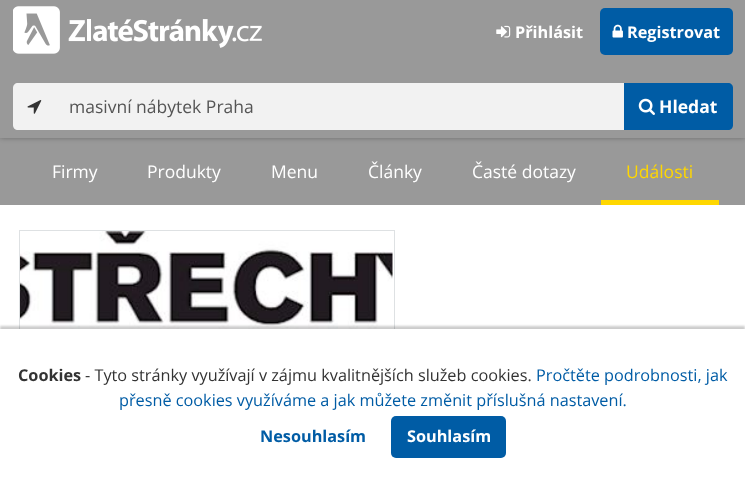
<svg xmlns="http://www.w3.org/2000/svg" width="745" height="490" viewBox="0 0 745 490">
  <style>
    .t1 { font: bold 16.25px Open Sans; fill: #fff; }
    .t2 { font: 17.5px Open Sans; fill: #555; }
    .t3 { font: bold 17.5px Open Sans; fill: #fff; }
    .t4 { font: 17.5px Open Sans; fill: #fff; }
    .t5 { font: 17.5px Open Sans; fill: #ffd700; }
    .t6 { font: bold 16.25px Open Sans; fill: #333; }
    .t7 { font: 16.25px Open Sans; fill: #333; }
    .t8 { font: 16.25px Open Sans; fill: #005ca5; }
    .t9 { font: bold 16.25px Open Sans; fill: #005ca5; }
  </style>
  <defs>
    <clipPath id="clip1"><path d="M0 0H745V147H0ZM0 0H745V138H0Z" clip-rule="evenodd"/></clipPath>
  </defs>
  <rect width="100%" height="100%" fill="#fff"/>
  <rect x="0" y="138" width="745" height="67" fill="#999"/>
  <g clip-path="url(#clip1)">
    <rect x="0" y="0" width="745" height="138" fill="#0000004d" filter="blur(2.5px)"/>
  </g>
  <rect x="0" y="0" width="745" height="138" fill="#00000066"/>
  <image x="13" y="6" width="249" height="48" href="images/1.png"/>
  <image x="496" y="25" width="15" height="13" href="images/2.png"/>
  <text x="515" y="38" class="t1">Přihlásit</text>
  <rect x="600" y="8" width="133" height="47" rx="5" fill="#005ca5"/>
  <image x="612" y="24" width="11" height="14" href="images/3.png"/>
  <text x="627" y="38" class="t1">Registrovat</text>
  <path d="M18 83H56V130H18C15 130 13 128 13 125V88C13 85 15 83 18 83Z" fill="#f2f2f2"/>
  <image x="27" y="100" width="15" height="14" href="images/4.png"/>
  <rect x="56" y="83" width="568" height="47" fill="#f2f2f2"/>
  <text x="69" y="113" class="t2">masivní nábytek Praha</text>
  <path d="M624 83H728C731 83 733 85 733 88V125C733 128 731 130 728 130H624Z" fill="#005ca5"/>
  <image x="638" y="98" width="17" height="17" href="images/5.png"/>
  <text x="659" y="113" class="t3">Hledat</text>
  <text x="52" y="178" class="t4">Firmy</text>
  <text x="147" y="178" class="t4">Produkty</text>
  <text x="271" y="178" class="t4">Menu</text>
  <text x="368" y="178" class="t4">Články</text>
  <text x="472" y="178" class="t4">Časté dotazy</text>
  <rect x="601" y="200" width="118" height="5" fill="#ffd700"/>
  <text x="626" y="178" class="t5">Události</text>
  <rect x="19.5" y="230.5" width="375" height="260" fill="none" stroke="#dee1e3"/>
  <image x="20" y="231" width="373" height="98" href="images/6.png"/>
  <rect x="0" y="326" width="745" height="162" fill="#00000033" filter="blur(1px)"/>
  <rect x="0" y="329" width="745" height="161" fill="#fff"/>
  <text x="18" y="381" class="t6">Cookies</text>
  <text x="85" y="381" class="t7">- Tyto stránky využívají v zájmu kvalitnějších služeb cookies.</text>
  <text x="536" y="381" class="t8">Pročtěte podrobnosti, jak</text>
  <text x="119" y="406" class="t8">přesně cookies využíváme a jak můžete změnit příslušná nastavení.</text>
  <text x="260" y="442" class="t9">Nesouhlasím</text>
  <rect x="391" y="416" width="115" height="42" rx="5" fill="#005ca5"/>
  <text x="407" y="442" class="t1">Souhlasím</text>
</svg>
